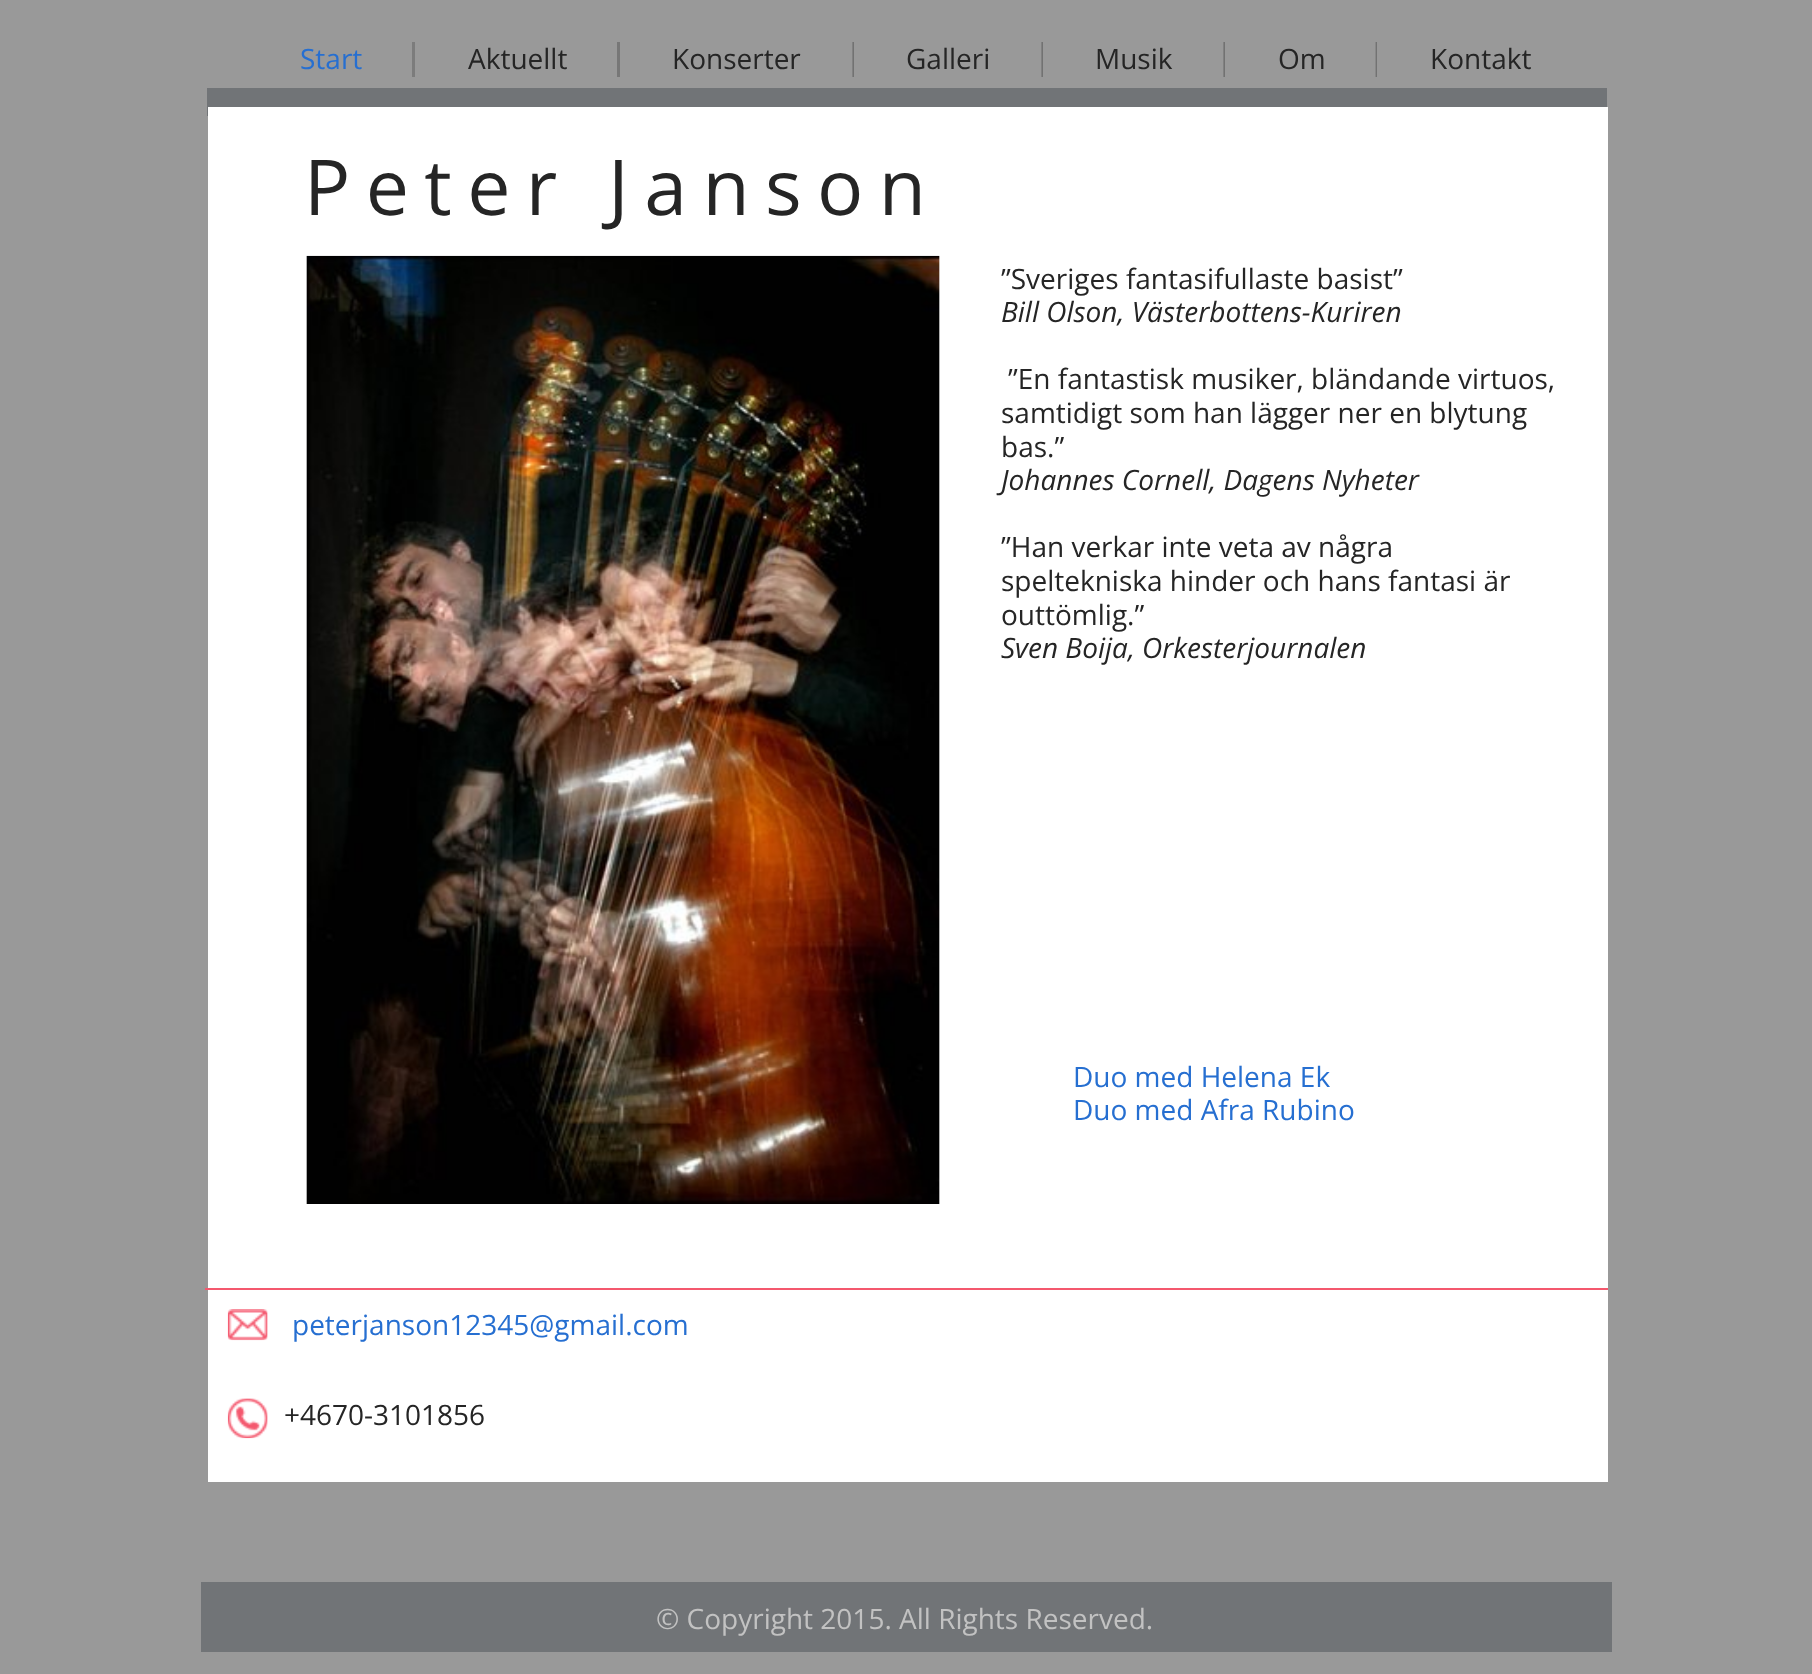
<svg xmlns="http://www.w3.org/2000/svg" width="1812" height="1674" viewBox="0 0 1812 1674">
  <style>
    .t1 { font: 28px Open Sans; fill: #266fd1; }
    .t2 { font: 28px Open Sans; fill: #252525; }
    .t3 { font: 77px Open Sans; letter-spacing: 15.4px; fill: #252525; }
    .t4 { font: italic 28px Open Sans; fill: #252525; }
    .t5 { font: 28px Open Sans; fill: #c2c2c2; }
  </style>
  <rect width="100%" height="100%" fill="#999"/>
  <text x="300" y="69" class="t1">Start</text>
  <rect x="412" y="42" width="3" height="35" fill="#7c7c7c"/>
  <text x="468" y="69" class="t2">Aktuellt</text>
  <rect x="617" y="42" width="3" height="35" fill="#777"/>
  <text x="672" y="69" class="t2">Konserter</text>
  <image x="852" y="42" width="2" height="35" href="images/1.png"/>
  <text x="906" y="69" class="t2">Galleri</text>
  <image x="1041" y="42" width="2" height="35" href="images/1.png"/>
  <text x="1095" y="69" class="t2">Musik</text>
  <image x="1223" y="42" width="2" height="35" href="images/1.png"/>
  <text x="1278" y="69" class="t2">Om</text>
  <image x="1375" y="42" width="2" height="35" href="images/2.png"/>
  <text x="1430" y="69" class="t2">Kontakt</text>
  <rect x="207" y="88" width="1400" height="28" fill="#717477"/>
  <rect x="208" y="107" width="1400" height="1375" fill="#fff"/>
  <text x="304" y="215" class="t3">Peter Janson</text>
  <image x="306" y="255" width="634" height="949" href="images/3.png"/>
  <text x="1001" y="289" class="t2">”Sveriges fantasifullaste basist”</text>
  <text x="1001" y="322" class="t4">Bill Olson, Västerbottens-Kuriren</text>
  <text x="1008" y="389" class="t2">”En fantastisk musiker, bländande virtuos,</text>
  <text x="1001" y="423" class="t2">samtidigt som han lägger ner en blytung</text>
  <text x="1001" y="457" class="t2">bas.”</text>
  <text x="1001" y="490" class="t4">Johannes Cornell, Dagens Nyheter</text>
  <text x="1001" y="557" class="t2">”Han verkar inte veta av några</text>
  <text x="1001" y="591" class="t2">speltekniska hinder och hans fantasi är</text>
  <text x="1001" y="625" class="t2">outtömlig.”</text>
  <text x="1001" y="658" class="t4">Sven Boija, Orkesterjournalen</text>
  <text x="1073" y="1087" class="t1">Duo med Helena Ek</text>
  <text x="1073" y="1120" class="t1">Duo med Afra Rubino</text>
  <rect x="205" y="1288" width="1403" height="2" fill="#f4586e"/>
  <image x="227" y="1309" width="41" height="32" href="images/4.png"/>
  <text x="292" y="1335" class="t1">peterjanson12345@gmail.com</text>
  <image x="227" y="1398" width="41" height="41" href="images/5.png"/>
  <text x="284" y="1425" class="t2">+4670-3101856</text>
  <rect x="201" y="1582" width="1411" height="70" fill="#717477"/>
  <text x="656" y="1629" class="t5">© Copyright 2015. All Rights Reserved.</text>
</svg>
